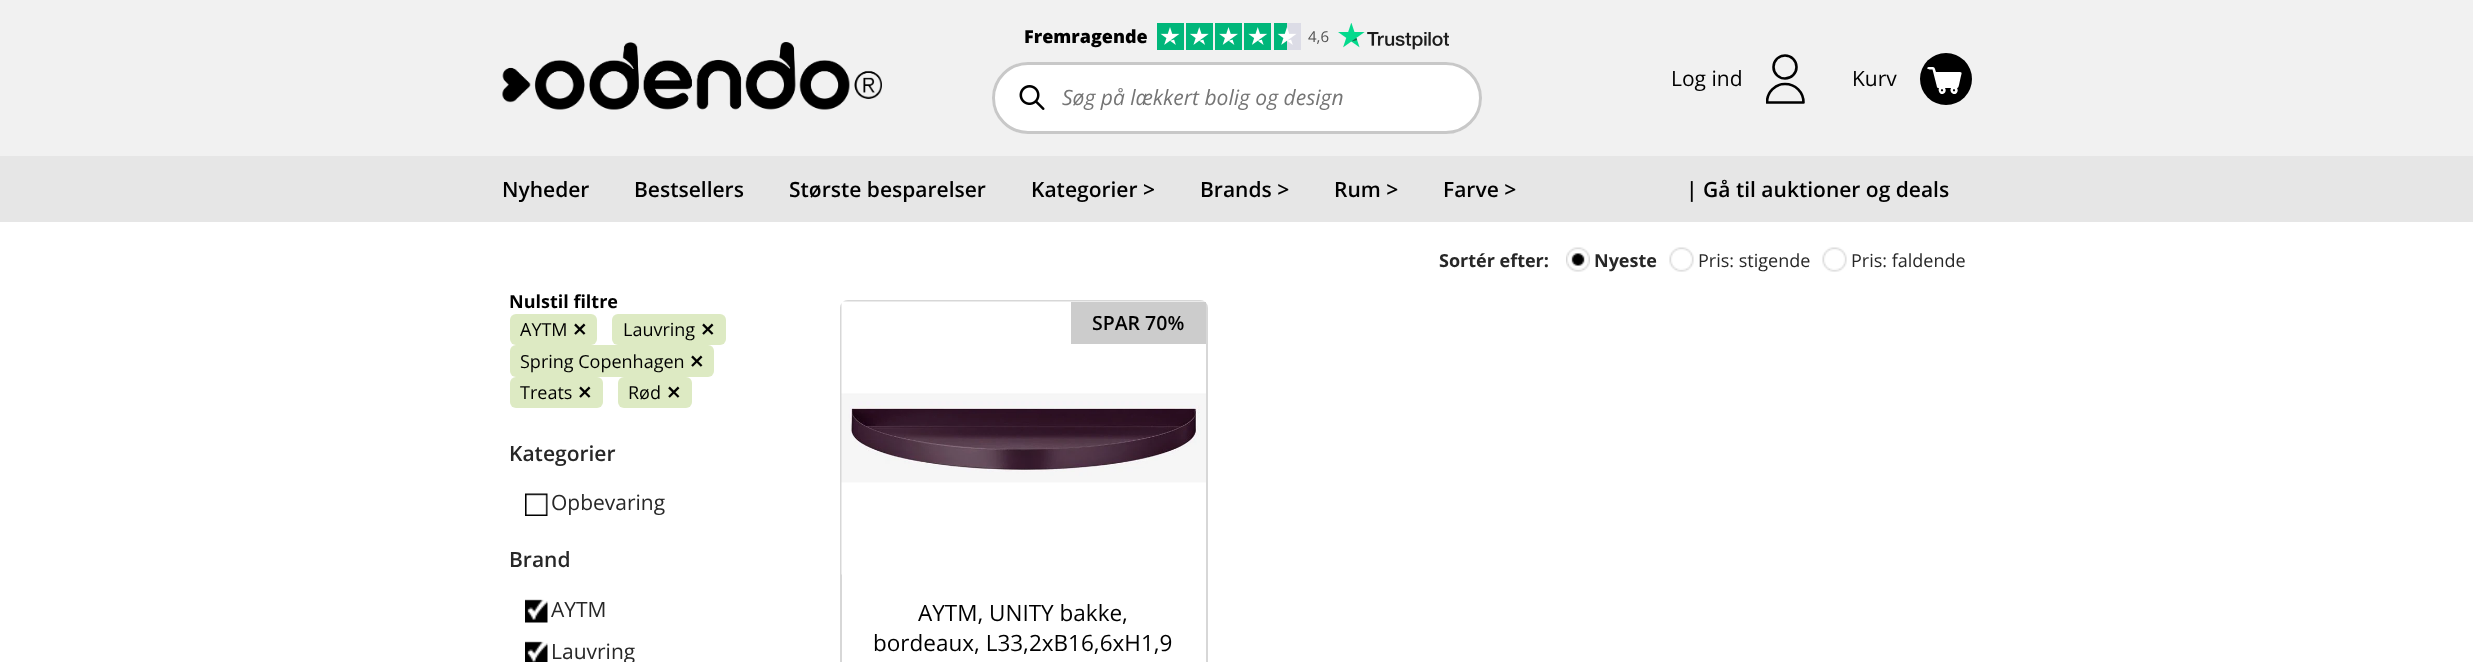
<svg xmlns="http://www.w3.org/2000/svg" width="2473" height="662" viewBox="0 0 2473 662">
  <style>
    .t1 { font: 800 18px Open Sans; fill: #000; }
    .t2 { font: 15px Open Sans; fill: #4f4f4f; }
    .t3 { font: italic 21px Open Sans; fill: #757575; }
    .t4 { font: 21px Open Sans; fill: #000; }
    .t5 { font: 600 21px Open Sans; fill: #000; }
    .t6 { font: bold 18px Open Sans; fill: #000; }
    .t7 { font: 18px Open Sans; fill: #000; }
    .t8 { font: bold 18px DejaVu Sans; fill: #000; }
    .t9 { font: 600 21px Open Sans; fill: #272727; }
    .t10 { font: 21px Open Sans; fill: #272727; }
    .t11 { font: bold 18px Open Sans; fill: #272727; }
    .t12 { font: 18px Open Sans; fill: #272727; }
    .t13 { font: 600 19.5px Open Sans; fill: #000; }
    .t14 { font: 22.5px Open Sans; fill: #000; }
  </style>
  <defs>
    <clipPath id="clip1"><rect x="1766" y="53" width="42" height="52"/></clipPath>
  </defs>
  <rect width="100%" height="100%" fill="#fff"/>
  <rect x="0" y="0" width="2473" height="156" fill="#f1f1f1"/>
  <image x="502" y="42" width="380" height="68" href="images/1.png"/>
  <text x="1024" y="43" class="t1">Fremragende</text>
  <image x="1157" y="23" width="144" height="27" href="images/2.png"/>
  <text x="1308" y="42" class="t2">4,6</text>
  <image x="1338" y="23" width="111" height="27" href="images/3.png"/>
  <rect x="992" y="62" width="490" height="72" rx="36" fill="#fff"/>
  <image x="1019" y="85" width="26" height="25" href="images/4.png"/>
  <rect x="993.5" y="63.5" width="487" height="69" rx="34.5" fill="none" stroke="#c8c8c8" stroke-width="3"/>
  <text x="1062" y="105" class="t3">Søg på lækkert bolig og design</text>
  <text x="1671" y="86" class="t4">Log ind</text>
  <circle cx="1785" cy="67" r="11.5" fill="none" stroke="#000" stroke-width="2.6"/>
  <g clip-path="url(#clip1)">
    <path d="M1767 102.5C1767 92 1775 84 1785 84C1795.5 84 1803.5 92 1803.5 102.5H1785Z" fill="none" stroke="#000" stroke-width="2.6" stroke-linecap="round" stroke-linejoin="round"/>
  </g>
  <text x="1852" y="86" class="t4">Kurv</text>
  <circle cx="1946" cy="79" r="26" fill="#000"/>
  <path d="M1928.5 67C1935 67 1934 66 1936 72H1956.5C1963 72 1962 71.5 1960.5 78L1959 85C1958.5 86 1958.5 88 1957 88C1957.5 89 1958 90.5 1957.5 91.5C1955.5 97 1948.5 92.5 1951 88H1945C1948 92.5 1941 97 1939 91.5C1938.5 90.5 1938.5 89 1939 88C1937 88 1937 87.5 1936.5 85L1932.5 69.5C1932 69.5 1926 70 1927.5 67.5ZM1942 91.5C1943.5 91.5 1943.5 89 1942 89C1940.5 89 1940.5 91.5 1942 91.5ZM1954 91.5C1955.5 91.5 1955.5 89 1954 89C1952.5 89 1952.5 91.5 1954 91.5Z" fill="#fff" fill-rule="evenodd"/>
  <rect x="0" y="156" width="2473" height="66" fill="#e6e6e6"/>
  <text x="502" y="197" class="t5">Nyheder</text>
  <text x="634" y="197" class="t5">Bestsellers</text>
  <text x="789" y="197" class="t5">Største besparelser</text>
  <text x="1031" y="197" class="t5">Kategorier &gt;</text>
  <text x="1200" y="197" class="t5">Brands &gt;</text>
  <text x="1334" y="197" class="t5">Rum &gt;</text>
  <text x="1443" y="197" class="t5">Farve &gt;</text>
  <text x="1686" y="197" class="t5">| Gå til auktioner og deals</text>
  <text x="509" y="308" class="t6">Nulstil filtre</text>
  <rect x="510" y="314" width="87" height="31" rx="6" fill="#ddeac3"/>
  <text x="520" y="336" class="t7">AYTM</text>
  <text x="572" y="336" class="t8">✕</text>
  <rect x="612" y="314" width="114" height="31" rx="6" fill="#ddeac3"/>
  <text x="623" y="336" class="t7">Lauvring</text>
  <text x="700" y="336" class="t8">✕</text>
  <rect x="510" y="345" width="204" height="32" rx="6" fill="#ddeac3"/>
  <text x="520" y="368" class="t7">Spring Copenhagen</text>
  <text x="689" y="368" class="t8">✕</text>
  <rect x="510" y="377" width="93" height="31" rx="6" fill="#ddeac3"/>
  <text x="520" y="399" class="t7">Treats</text>
  <text x="577" y="399" class="t8">✕</text>
  <rect x="618" y="377" width="74" height="31" rx="6" fill="#ddeac3"/>
  <text x="628" y="399" class="t7">Rød</text>
  <text x="666" y="399" class="t8">✕</text>
  <text x="509" y="461" class="t9">Kategorier</text>
  <image x="525" y="493" width="23" height="23" href="images/5.png"/>
  <text x="551" y="510" class="t10">Opbevaring</text>
  <text x="509" y="567" class="t9">Brand</text>
  <image x="525" y="599" width="23" height="24" href="images/6.png"/>
  <text x="551" y="617" class="t10">AYTM</text>
  <image x="525" y="641" width="23" height="21" href="images/7.png"/>
  <text x="551" y="659" class="t10">Lauvring</text>
  <text x="1439" y="267" class="t11">Sortér efter:</text>
  <image x="1566" y="247" width="24" height="25" href="images/8.png"/>
  <text x="1594" y="267" class="t11">Nyeste</text>
  <image x="1669" y="247" width="25" height="25" href="images/9.png"/>
  <text x="1698" y="267" class="t12">Pris: stigende</text>
  <image x="1822" y="247" width="25" height="25" href="images/10.png"/>
  <text x="1851" y="267" class="t12">Pris: faldende</text>
  <rect x="841" y="301" width="366" height="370" rx="7" fill="none" stroke="#d7d7d7" stroke-width="2"/>
  <image x="841" y="301" width="365" height="274" href="images/11.png"/>
  <rect x="1071" y="302" width="135" height="42" fill="#ccc"/>
  <text x="1092" y="330" class="t13">SPAR 70%</text>
  <text x="918" y="621" class="t14">AYTM, UNITY bakke,</text>
  <text x="873" y="651" class="t14">bordeaux, L33,2xB16,6xH1,9</text>
</svg>
